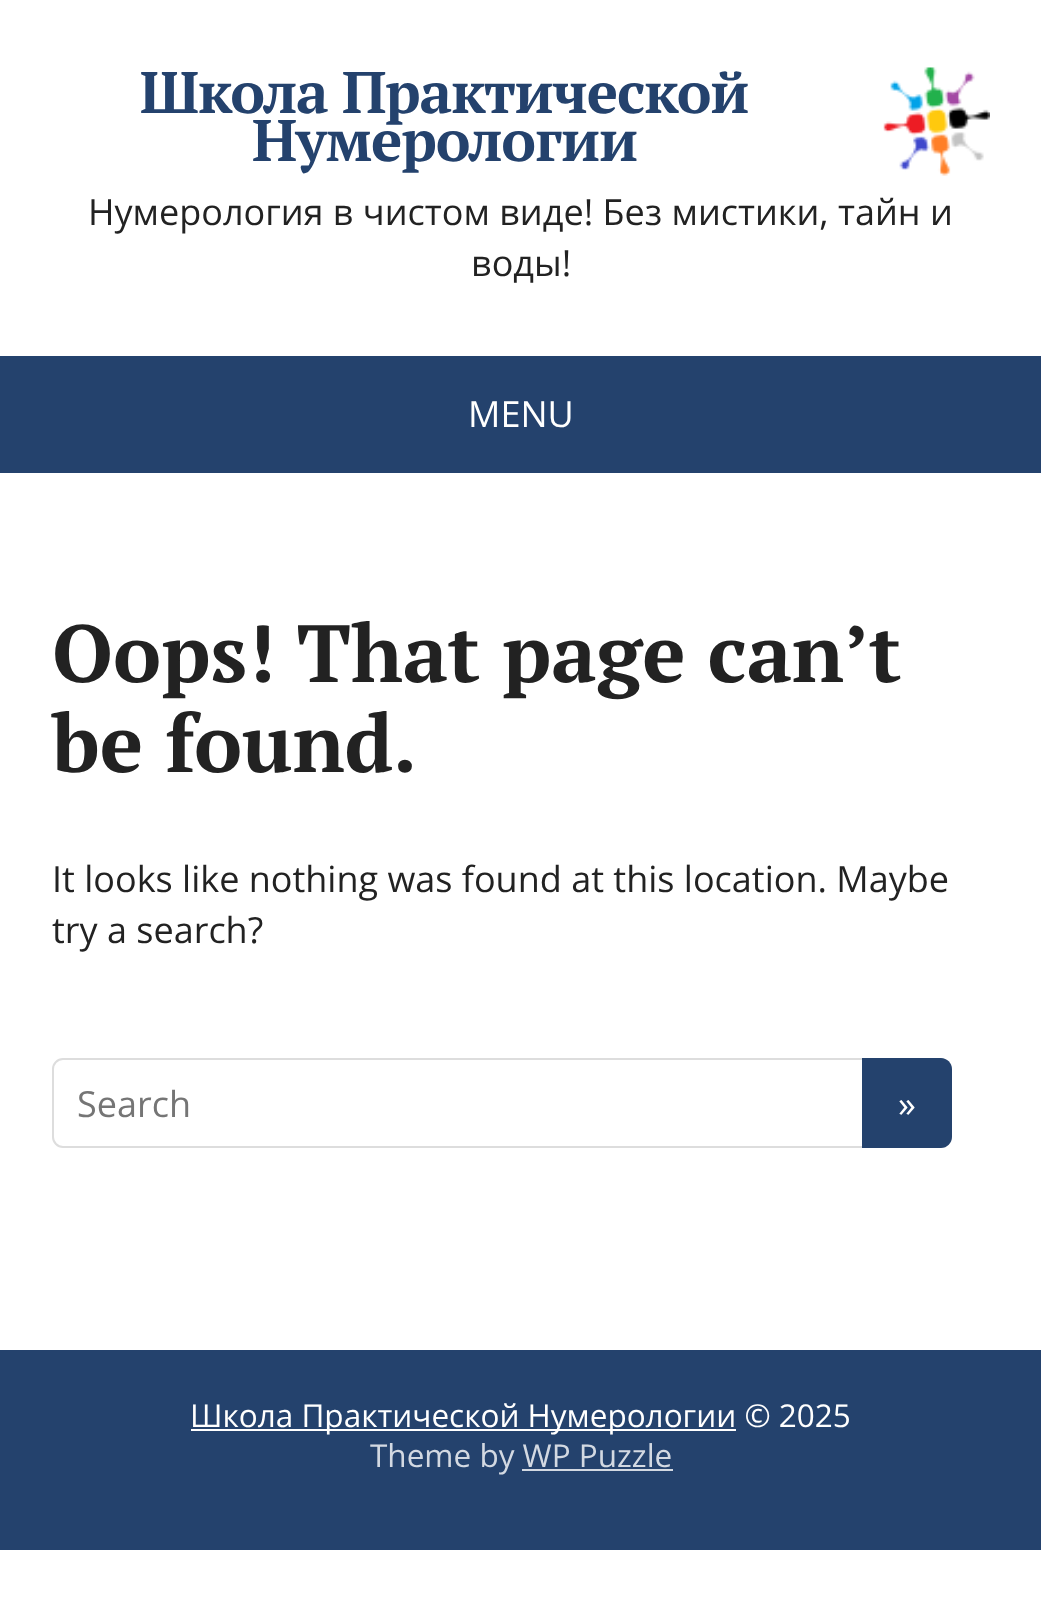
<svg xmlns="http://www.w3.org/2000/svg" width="1041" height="1597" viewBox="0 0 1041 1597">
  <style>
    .t1 { font: bold 58.5px PT Serif; letter-spacing: -1.2px; fill: #24426d; }
    .t2 { font: 36px Open Sans; fill: #222; }
    .t3 { font: 36px Open Sans; fill: #fff; }
    .t4 { font: bold 81px PT Serif; fill: #222; }
    .t5 { font: 36px Open Sans; fill: #757575; }
    .t6 { font: 31.5px Open Sans; fill: #fff; }
    .t7 { font: 31.5px Open Sans; fill: #d3d9e2; }
  </style>
  <rect width="100%" height="100%" fill="#fff"/>
  <text x="140" y="113" class="t1">Школа Практической</text>
  <image x="883" y="67" width="107" height="109" href="images/1.png"/>
  <text x="252" y="161" class="t1">Нумерологии</text>
  <text x="88" y="225" class="t2">Нумерология в чистом виде! Без мистики, тайн и</text>
  <text x="471" y="276" class="t2">воды!</text>
  <rect x="0" y="356" width="1041" height="117" fill="#24426d"/>
  <text x="468" y="427" class="t3">MENU</text>
  <text x="52" y="682" class="t4">Oops! That page can’t</text>
  <text x="52" y="772" class="t4">be found.</text>
  <text x="52" y="892" class="t2">It looks like nothing was found at this location. Maybe</text>
  <text x="52" y="943" class="t2">try a search?</text>
  <rect x="53" y="1059" width="857" height="88" rx="10" fill="none" stroke="#ddd" stroke-width="2"/>
  <text x="77" y="1117" class="t5">Search</text>
  <path d="M862 1058H941C947 1058 952 1063 952 1069V1137C952 1143 947 1148 941 1148H862Z" fill="#24426d"/>
  <text x="898" y="1117" class="t3">»</text>
  <rect x="0" y="1350" width="1041" height="200" fill="#24426d"/>
  <rect x="191" y="1429" width="545" height="2" fill="#fff"/>
  <text x="190" y="1427" class="t6">Школа Практической Нумерологии © 2025</text>
  <text x="370" y="1467" class="t7">Theme by WP Puzzle</text>
  <rect x="522" y="1469" width="151" height="2" fill="#d3d9e2"/>
</svg>
